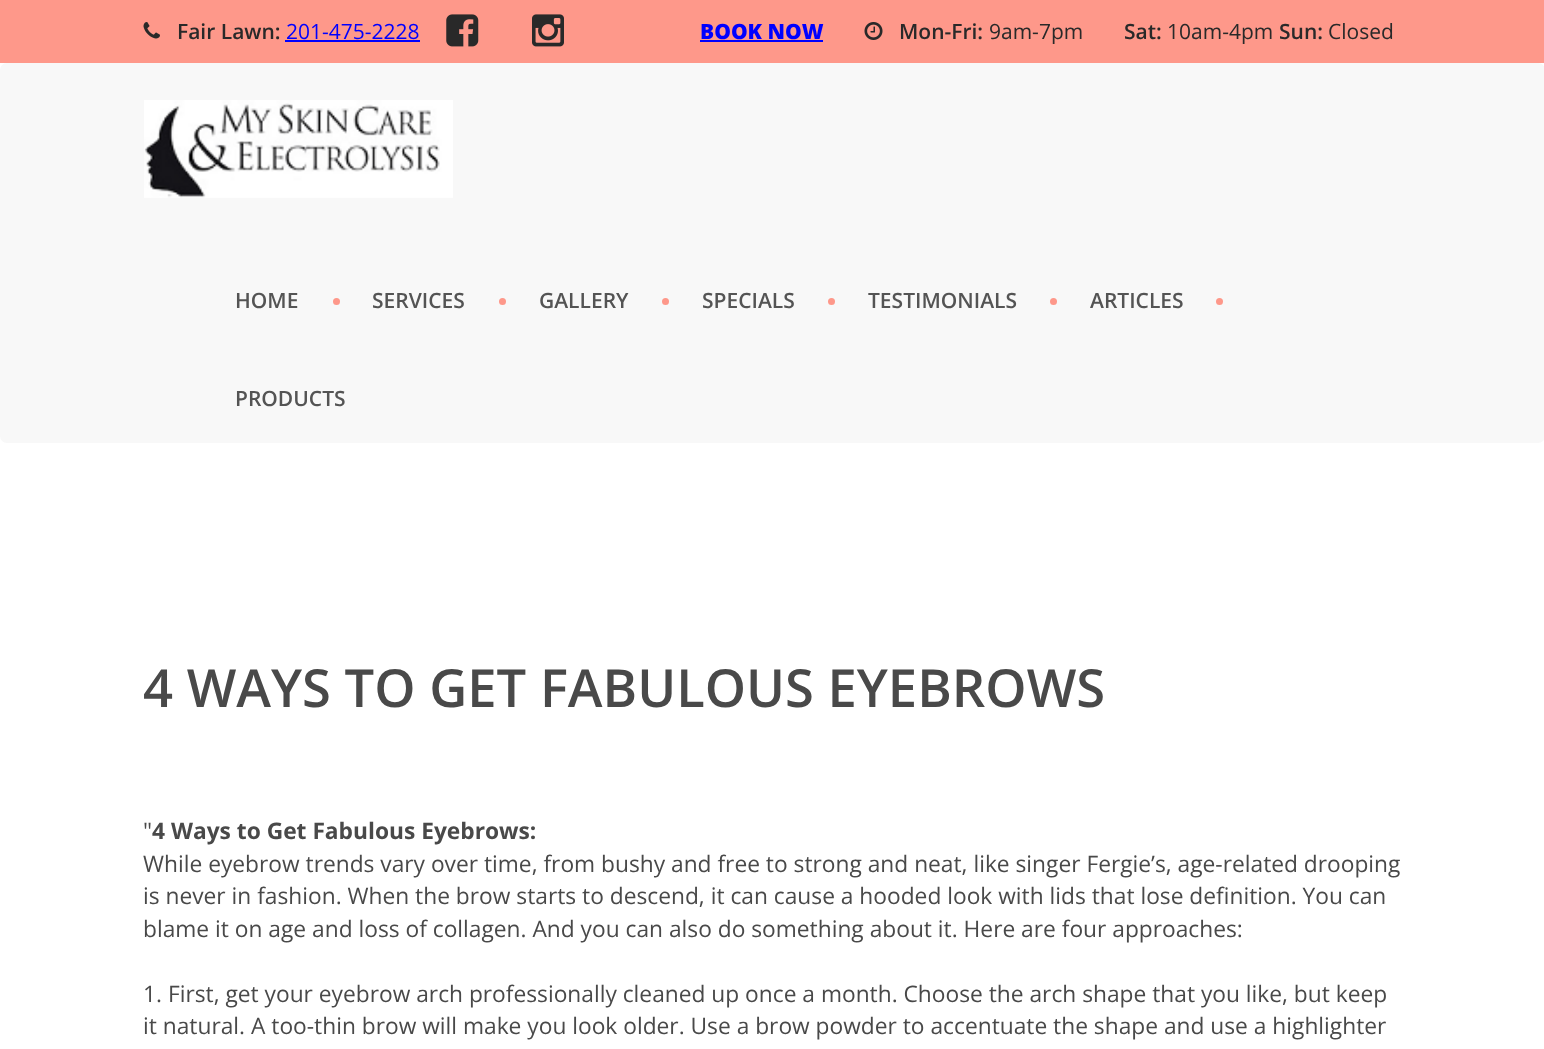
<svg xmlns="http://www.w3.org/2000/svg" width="1544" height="1049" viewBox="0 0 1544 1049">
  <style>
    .t1 { font: 600 21px Open Sans; fill: #292929; }
    .t2 { font: 21px Open Sans; fill: #00f; }
    .t3 { font: 800 21px Open Sans; fill: #00f; }
    .t4 { font: 21px Open Sans; fill: #292929; }
    .t5 { font: 600 21px Open Sans; fill: #545454; }
    .t6 { font: 600 52.5px Open Sans; fill: #494949; }
    .t7 { font: 22.75px Open Sans; fill: #494949; }
    .t8 { font: bold 22.75px Open Sans; fill: #494949; }
  </style>
  <rect width="100%" height="100%" fill="#fff"/>
  <rect x="0" y="0" width="1544" height="63" fill="#fe988a"/>
  <image x="143" y="22" width="17" height="17" href="images/1.png"/>
  <text x="177" y="39" class="t1">Fair Lawn:</text>
  <text x="286" y="39" class="t2">201-475-2228</text>
  <rect x="285" y="40" width="135" height="2" fill="#00f"/>
  <image x="446" y="14" width="33" height="33" href="images/2.png"/>
  <image x="532" y="14" width="32" height="33" href="images/3.png"/>
  <text x="700" y="39" class="t3">BOOK NOW</text>
  <rect x="700" y="40" width="123" height="2" fill="#00f"/>
  <image x="864" y="22" width="19" height="18" href="images/4.png"/>
  <text x="899" y="39" class="t1">Mon-Fri:</text>
  <text x="989" y="39" class="t4">9am-7pm</text>
  <text x="1124" y="39" class="t1">Sat:</text>
  <text x="1167" y="39" class="t4">10am-4pm</text>
  <text x="1279" y="39" class="t1">Sun:</text>
  <text x="1328" y="39" class="t4">Closed</text>
  <rect x="0" y="63" width="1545" height="380" rx="7" fill="#f8f8f8"/>
  <image x="144" y="100" width="309" height="98" href="images/5.png"/>
  <text x="235" y="308" class="t5">HOME</text>
  <circle cx="336.5" cy="301.5" r="3.5" fill="#fe988a"/>
  <text x="372" y="308" class="t5">SERVICES</text>
  <circle cx="502.5" cy="301.5" r="3.5" fill="#fe988a"/>
  <text x="539" y="308" class="t5">GALLERY</text>
  <circle cx="665.5" cy="301.5" r="3.5" fill="#fe988a"/>
  <text x="702" y="308" class="t5">SPECIALS</text>
  <circle cx="831.5" cy="301.5" r="3.5" fill="#fe988a"/>
  <text x="868" y="308" class="t5">TESTIMONIALS</text>
  <circle cx="1053.5" cy="301.5" r="3.5" fill="#fe988a"/>
  <text x="1090" y="308" class="t5">ARTICLES</text>
  <circle cx="1219.5" cy="301.5" r="3.5" fill="#fe988a"/>
  <text x="235" y="406" class="t5">PRODUCTS</text>
  <text x="143" y="707" class="t6">4 WAYS TO GET FABULOUS EYEBROWS</text>
  <text x="143" y="839" class="t7">"</text>
  <text x="152" y="839" class="t8">4 Ways to Get Fabulous Eyebrows:</text>
  <text x="143" y="872" class="t7">While eyebrow trends vary over time, from bushy and free to strong and neat, like singer Fergie’s, age-related drooping</text>
  <text x="143" y="904" class="t7">is never in fashion. When the brow starts to descend, it can cause a hooded look with lids that lose definition. You can</text>
  <text x="143" y="937" class="t7">blame it on age and loss of collagen. And you can also do something about it. Here are four approaches:</text>
  <text x="143" y="1002" class="t7">1. First, get your eyebrow arch professionally cleaned up once a month. Choose the arch shape that you like, but keep</text>
  <text x="143" y="1034" class="t7">it natural. A too-thin brow will make you look older. Use a brow powder to accentuate the shape and use a highlighter</text>
</svg>
